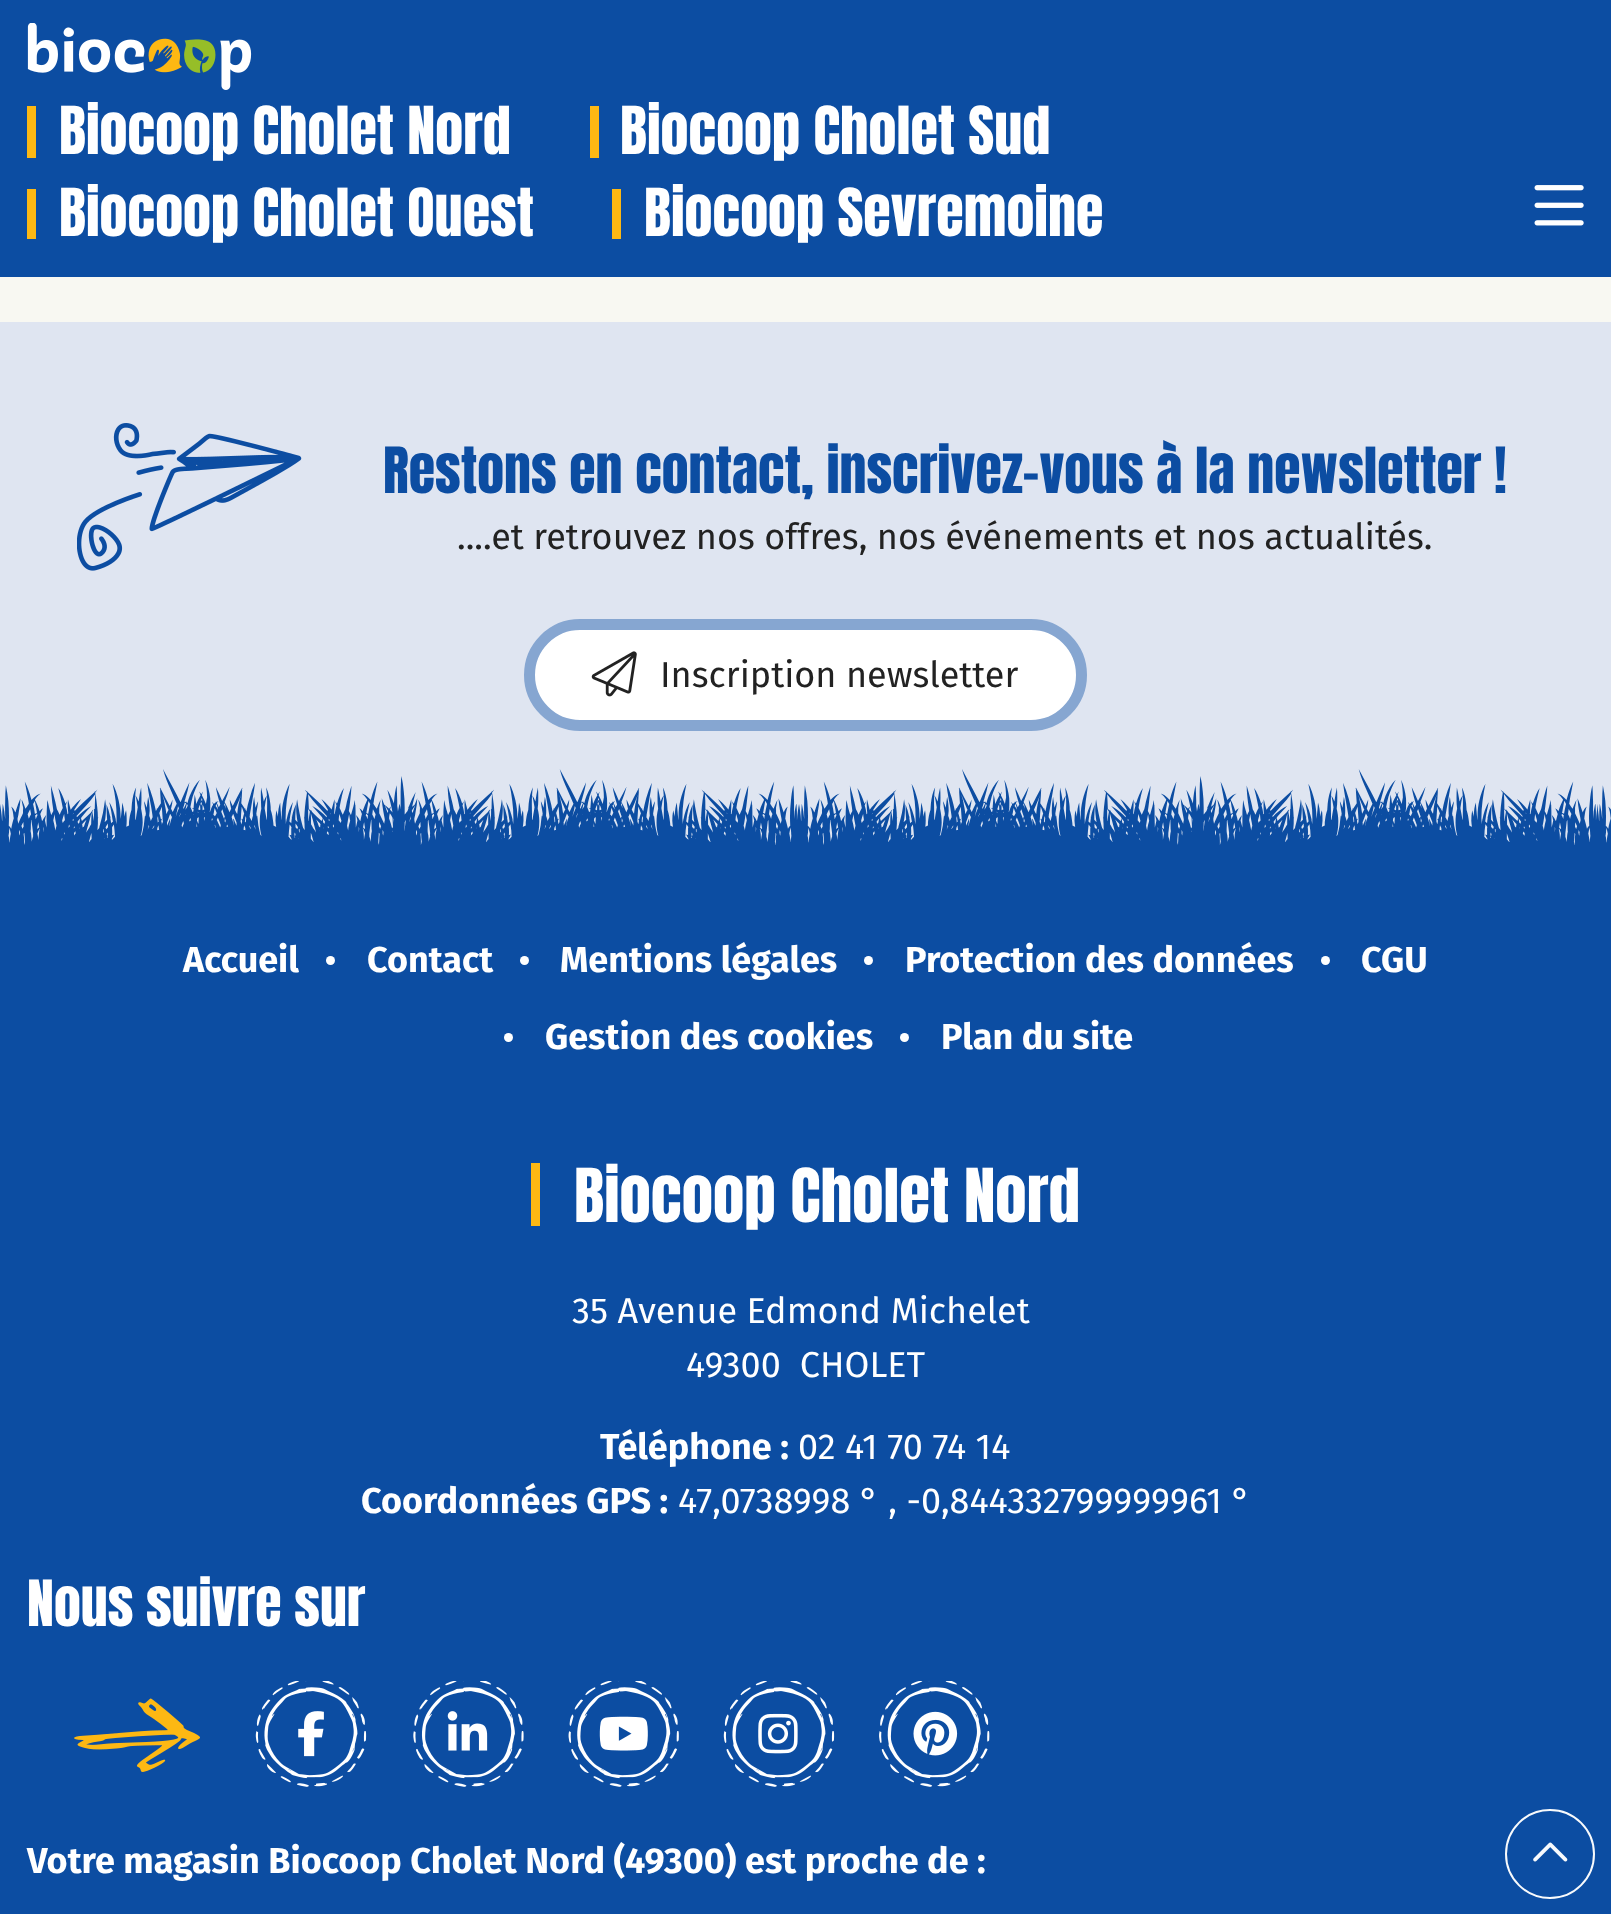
<svg xmlns="http://www.w3.org/2000/svg" width="1611" height="1914" viewBox="0 0 1611 1914">
  <style>
    .t1 { font: 56.25px Anton; fill: #fff; }
    .t2 { font: 54px Anton; fill: #0c4da2; }
    .t3 { font: 36px Fira Sans; fill: #222; }
    .t4 { font: bold 36px Fira Sans; fill: #fff; }
    .t5 { font: 63px Anton; fill: #fff; }
    .t6 { font: 36px Fira Sans; fill: #fff; }
    .t7 { font: 54px Anton; fill: #fff; }
  </style>
  <rect width="100%" height="100%" fill="#0c4da2"/>
  <image x="27" y="23" width="225" height="67" href="images/1.png"/>
  <rect x="27" y="106" width="9" height="52" fill="#fdb813"/>
  <text x="59" y="154" class="t1">Biocoop Cholet Nord</text>
  <rect x="590" y="106" width="9" height="52" fill="#fdb813"/>
  <text x="620" y="154" class="t1">Biocoop Cholet Sud</text>
  <rect x="27" y="189" width="9" height="50" fill="#fdb813"/>
  <text x="59" y="236" class="t1">Biocoop Cholet Ouest</text>
  <rect x="612" y="189" width="9" height="50" fill="#fdb813"/>
  <text x="644" y="236" class="t1">Biocoop Sevremoine</text>
  <image x="1534" y="185" width="50" height="41" href="images/2.png"/>
  <circle cx="1550" cy="1854" r="44" fill="none" stroke="#f8fafc" stroke-width="2"/>
  <image x="1533" y="1842" width="35" height="20" href="images/3.png"/>
  <rect x="0" y="277" width="1611" height="45" fill="#f8f8f2"/>
  <rect x="0" y="322" width="1611" height="523" fill="#dfe5f1"/>
  <image x="77" y="423" width="225" height="148" href="images/4.png"/>
  <text x="383" y="493" class="t2">Restons en contact, inscrivez-vous à la newsletter !</text>
  <text x="457" y="549" class="t3">....et retrouvez nos offres, nos événements et nos actualités.</text>
  <rect x="529.5" y="624.5" width="552" height="101" rx="50.5" fill="#fff" stroke="#86a6d1" stroke-width="11"/>
  <image x="591" y="651" width="46" height="46" href="images/5.png"/>
  <text x="660" y="687" class="t3">Inscription newsletter</text>
  <image x="0" y="769" width="1611" height="109" href="images/6.png"/>
  <text x="183" y="972" class="t4">Accueil</text>
  <circle cx="330.5" cy="960.5" r="4.5" fill="#fff"/>
  <text x="367" y="972" class="t4">Contact</text>
  <circle cx="524.5" cy="960.5" r="4.5" fill="#fff"/>
  <text x="560" y="972" class="t4">Mentions légales</text>
  <circle cx="868.5" cy="960.5" r="4.5" fill="#fff"/>
  <text x="905" y="972" class="t4">Protection des données</text>
  <circle cx="1325.5" cy="960.5" r="4.5" fill="#fff"/>
  <text x="1361" y="972" class="t4">CGU</text>
  <circle cx="508.5" cy="1037.5" r="4.5" fill="#fff"/>
  <text x="545" y="1049" class="t4">Gestion des cookies</text>
  <circle cx="904.5" cy="1037.5" r="4.5" fill="#fff"/>
  <text x="941" y="1049" class="t4">Plan du site</text>
  <rect x="531" y="1163" width="9" height="63" fill="#fdb813"/>
  <text x="574" y="1222" class="t5">Biocoop Cholet Nord</text>
  <text x="572" y="1323" class="t6">35 Avenue Edmond Michelet</text>
  <text x="686" y="1377" class="t6" xml:space="preserve">49300  CHOLET</text>
  <text x="600" y="1459" class="t4">Téléphone :</text>
  <text x="798" y="1459" class="t6">02 41 70 74 14</text>
  <text x="361" y="1513" class="t4">Coordonnées GPS :</text>
  <text x="678" y="1513" class="t6">47,0738998 ° , -0,844332799999961 °</text>
  <text x="27" y="1626" class="t7">Nous suivre sur</text>
  <image x="74" y="1698" width="126" height="74" href="images/7.png"/>
  <image x="255" y="1681" width="112" height="106" href="images/8.png"/>
  <image x="298" y="1711" width="26" height="46" href="images/9.png"/>
  <image x="413" y="1681" width="111" height="106" href="images/10.png"/>
  <image x="447" y="1711" width="41" height="40" href="images/11.png"/>
  <image x="568" y="1681" width="111" height="106" href="images/12.png"/>
  <image x="599" y="1716" width="49" height="35" href="images/13.png"/>
  <image x="723" y="1681" width="112" height="106" href="images/8.png"/>
  <image x="758" y="1713" width="40" height="41" href="images/14.png"/>
  <image x="879" y="1681" width="111" height="106" href="images/15.png"/>
  <image x="913" y="1711" width="45" height="45" href="images/16.png"/>
  <text x="27" y="1873" class="t4">Votre magasin Biocoop Cholet Nord (49300) est proche de :</text>
</svg>
